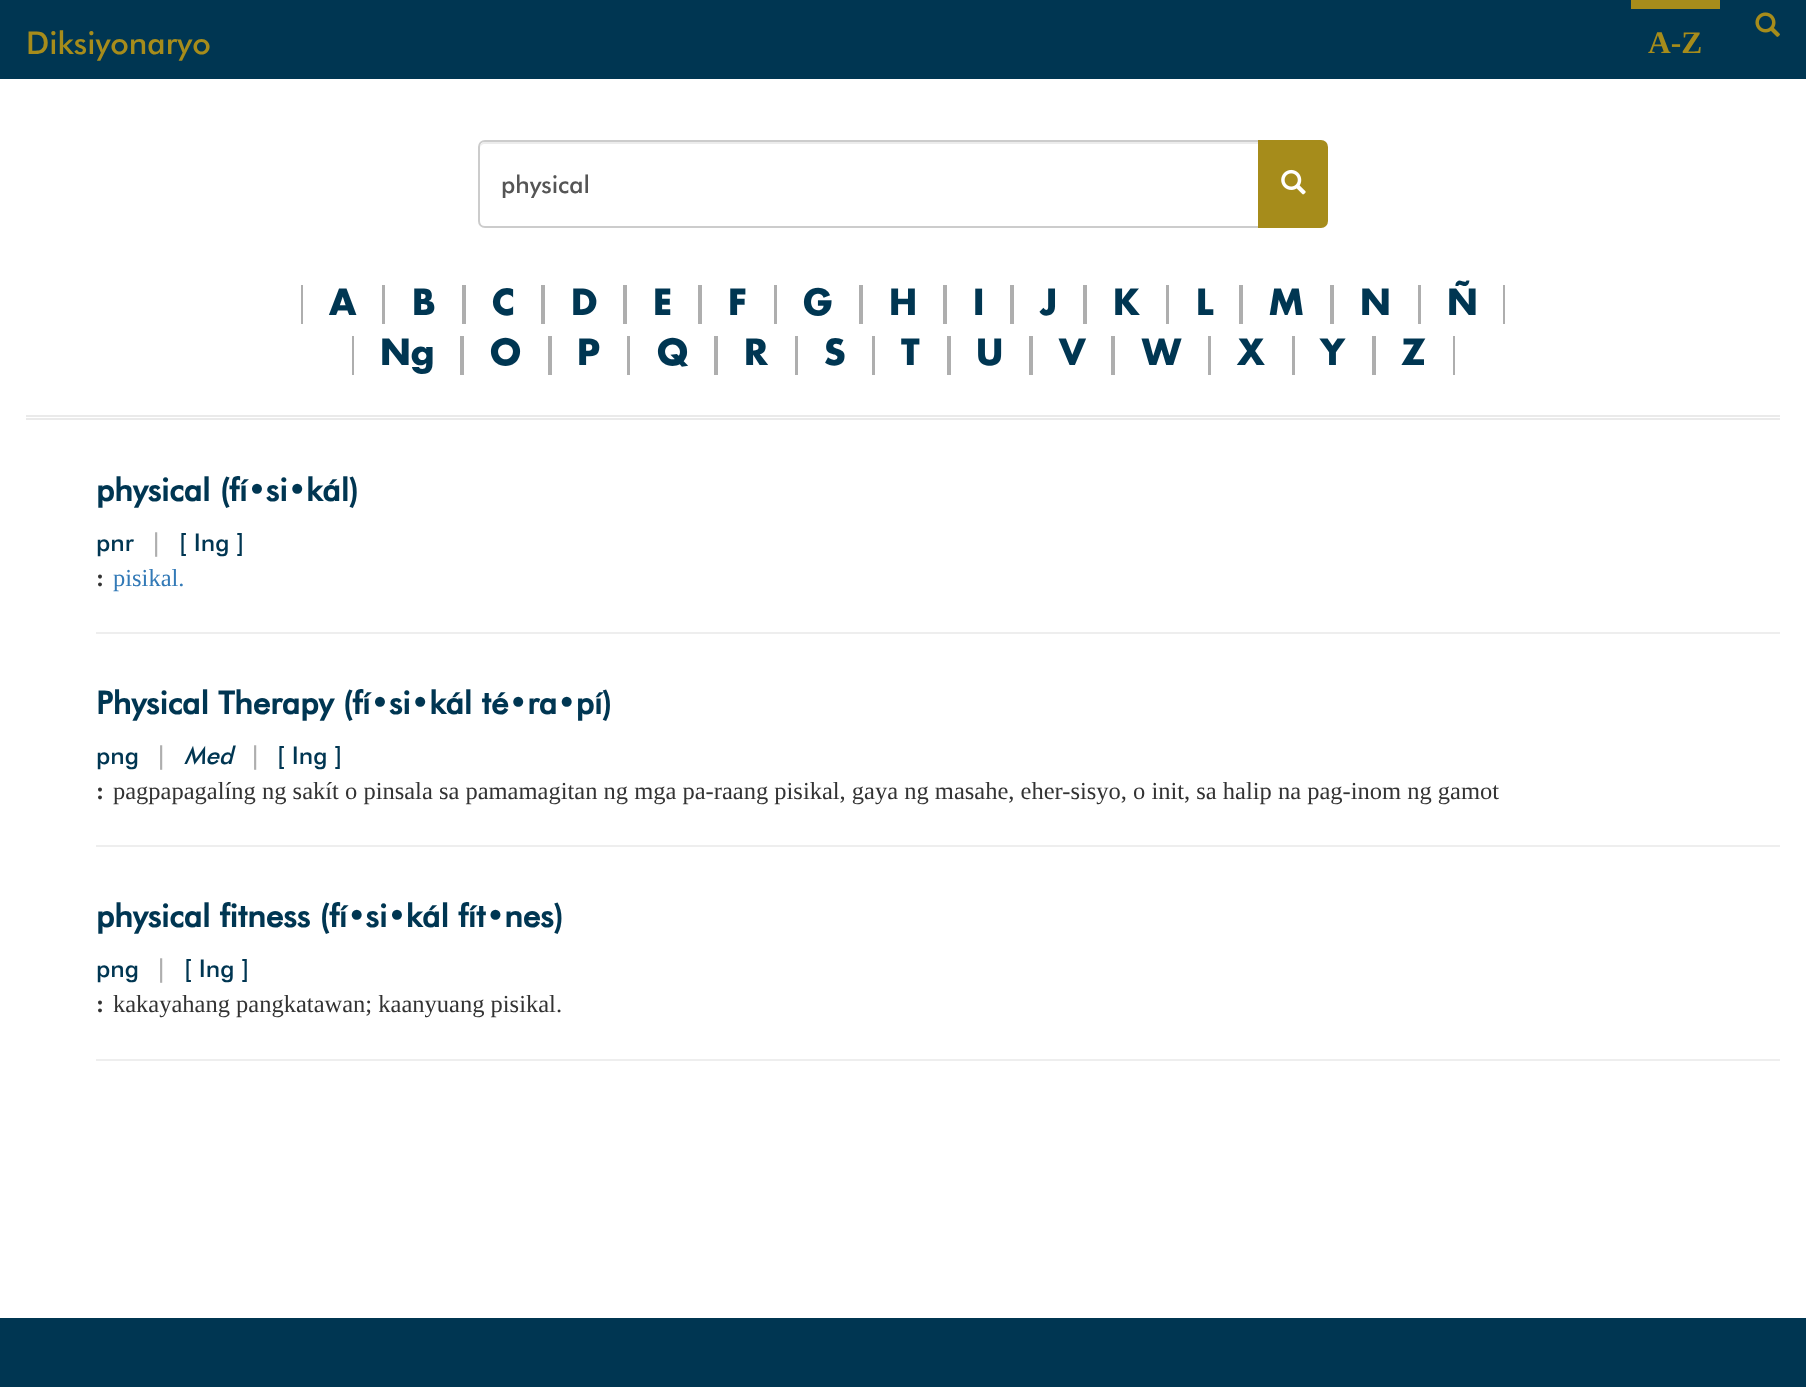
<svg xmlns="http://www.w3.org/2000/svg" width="1806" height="1387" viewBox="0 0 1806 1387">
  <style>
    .t1 { font: 500 31.5px Futura; fill: #a68c1b; }
    .t2 { font: bold 31.5px Liberation Serif; fill: #a68c1b; }
    .t3 { font: 500 24.5px Futura; fill: #555; }
    .t4 { font: bold 35px Futura; fill: #003652; }
    .t5 { font: bold 31.5px 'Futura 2'; fill: #003652; }
    .t6 { font: 500 24.5px Futura; fill: #003652; }
    .t7 { font: 500 24.5px Futura; fill: #aeaeae; }
    .t8 { font: bold 24.5px Liberation Serif; fill: #333; }
    .t9 { font: 24.5px Liberation Serif; fill: #337ab7; }
    .t10 { font: italic 500 24.5px Futura; fill: #003652; }
    .t11 { font: 24.5px Liberation Serif; fill: #333; }
  </style>
  <defs>
    <clipPath id="clip1"><rect x="501" y="170" width="736" height="28"/></clipPath>
  </defs>
  <rect width="100%" height="100%" fill="#fff"/>
  <rect x="0" y="0" width="1806" height="79" fill="#003652"/>
  <image x="1755" y="12" width="25" height="25" href="images/1.png"/>
  <text x="26" y="54" class="t1">Diksiyonaryo</text>
  <rect x="1631" y="0" width="89" height="9" fill="#a68c1b"/>
  <text x="1648" y="53" class="t2">A-Z</text>
  <path d="M485 144H1258V142H485C481 142 480 146 480 149C480 146 482 144 485 144Z" fill="#ececec"/>
  <path d="M485 141H1259V227H485C481.5 227 479 224.5 479 221V147C479 143.5 481.5 141 485 141Z" fill="none" stroke="#ccc" stroke-width="2"/>
  <g clip-path="url(#clip1)">
    <text x="501" y="193" class="t3">physical</text>
  </g>
  <path d="M1259 141H1321C1324.5 141 1327 143.5 1327 147V221C1327 224.5 1324.5 227 1321 227H1259Z" fill="#a68c1b" stroke="#a68c1b" stroke-width="2"/>
  <image x="1281" y="169" width="25" height="26" href="images/2.png"/>
  <text x="329" y="315" class="t4">A</text>
  <rect x="382" y="285" width="3" height="39" fill="#aeaeae"/>
  <rect x="301" y="285" width="2" height="39" fill="#aeaeae"/>
  <text x="412" y="315" class="t4">B</text>
  <rect x="462" y="285" width="4" height="39" fill="#aeaeae"/>
  <text x="492" y="315" class="t4">C</text>
  <rect x="541" y="285" width="4" height="39" fill="#aeaeae"/>
  <text x="571" y="315" class="t4">D</text>
  <rect x="623" y="285" width="4" height="39" fill="#aeaeae"/>
  <text x="653" y="315" class="t4">E</text>
  <rect x="698" y="285" width="4" height="39" fill="#aeaeae"/>
  <text x="728" y="315" class="t4">F</text>
  <rect x="774" y="285" width="3" height="39" fill="#aeaeae"/>
  <text x="803" y="315" class="t4">G</text>
  <rect x="859" y="285" width="4" height="39" fill="#aeaeae"/>
  <text x="889" y="315" class="t4">H</text>
  <rect x="943" y="285" width="4" height="39" fill="#aeaeae"/>
  <text x="973" y="315" class="t4">I</text>
  <rect x="1010" y="285" width="4" height="39" fill="#aeaeae"/>
  <text x="1040" y="315" class="t4">J</text>
  <rect x="1083" y="285" width="4" height="39" fill="#aeaeae"/>
  <text x="1113" y="315" class="t4">K</text>
  <rect x="1166" y="285" width="3" height="39" fill="#aeaeae"/>
  <text x="1196" y="315" class="t4">L</text>
  <rect x="1239" y="285" width="4" height="39" fill="#aeaeae"/>
  <text x="1269" y="315" class="t4">M</text>
  <rect x="1330" y="285" width="4" height="39" fill="#aeaeae"/>
  <text x="1360" y="315" class="t4">N</text>
  <rect x="1418" y="285" width="3" height="39" fill="#aeaeae"/>
  <text x="1447" y="315" class="t4">Ñ</text>
  <rect x="1503" y="285" width="2" height="39" fill="#aeaeae"/>
  <text x="380" y="365" class="t4">Ng</text>
  <rect x="460" y="336" width="4" height="39" fill="#aeaeae"/>
  <rect x="352" y="336" width="2" height="39" fill="#aeaeae"/>
  <text x="490" y="365" class="t4">O</text>
  <rect x="548" y="336" width="4" height="39" fill="#aeaeae"/>
  <text x="577" y="365" class="t4">P</text>
  <rect x="627" y="336" width="3" height="39" fill="#aeaeae"/>
  <text x="657" y="365" class="t4">Q</text>
  <rect x="714" y="336" width="4" height="39" fill="#aeaeae"/>
  <text x="744" y="365" class="t4">R</text>
  <rect x="795" y="336" width="3" height="39" fill="#aeaeae"/>
  <text x="824" y="365" class="t4">S</text>
  <rect x="872" y="336" width="3" height="39" fill="#aeaeae"/>
  <text x="901" y="365" class="t4">T</text>
  <rect x="947" y="336" width="4" height="39" fill="#aeaeae"/>
  <text x="976" y="365" class="t4">U</text>
  <rect x="1029" y="336" width="4" height="39" fill="#aeaeae"/>
  <text x="1059" y="365" class="t4">V</text>
  <rect x="1111" y="336" width="4" height="39" fill="#aeaeae"/>
  <text x="1142" y="365" class="t4">W</text>
  <rect x="1208" y="336" width="3" height="39" fill="#aeaeae"/>
  <text x="1237" y="365" class="t4">X</text>
  <rect x="1292" y="336" width="3" height="39" fill="#aeaeae"/>
  <text x="1320" y="365" class="t4">Y</text>
  <rect x="1372" y="336" width="4" height="39" fill="#aeaeae"/>
  <text x="1401" y="365" class="t4">Z</text>
  <rect x="1453" y="336" width="2" height="39" fill="#aeaeae"/>
  <rect x="26" y="415" width="1754" height="2" fill="#eaeaea"/>
  <rect x="26" y="418" width="1754" height="2" fill="#eaeaea"/>
  <text x="96" y="501" class="t5">physical (fí•si•kál)</text>
  <text x="96" y="551" class="t6">pnr</text>
  <text x="150" y="551" class="t7">|</text>
  <text x="179" y="551" class="t6">[ Ing ]</text>
  <text x="96" y="586" class="t8">:</text>
  <text x="113" y="586" class="t9">pisikal.</text>
  <rect x="96" y="632" width="1684" height="2" fill="#eee"/>
  <text x="96" y="714" class="t5">Physical Therapy (fí•si•kál té•ra•pí)</text>
  <text x="96" y="764" class="t6">png</text>
  <text x="155" y="764" class="t7">|</text>
  <text x="184" y="764" class="t10">Med</text>
  <text x="249" y="764" class="t7">|</text>
  <text x="277" y="764" class="t6">[ Ing ]</text>
  <text x="96" y="799" class="t8">:</text>
  <text x="113" y="799" class="t11">pagpapagalíng ng sakít o pinsala sa pamamagitan ng mga pa-raang pisikal, gaya ng masahe, eher-sisyo, o init, sa halip na pag-inom ng gamot</text>
  <rect x="96" y="845" width="1684" height="2" fill="#eee"/>
  <text x="96" y="927" class="t5">physical fitness (fí•si•kál fít•nes)</text>
  <text x="96" y="977" class="t6">png</text>
  <text x="155" y="977" class="t7">|</text>
  <text x="184" y="977" class="t6">[ Ing ]</text>
  <text x="96" y="1012" class="t8">:</text>
  <text x="113" y="1012" class="t11">kakayahang pangkatawan; kaanyuang pisikal.</text>
  <rect x="96" y="1059" width="1684" height="2" fill="#eee"/>
  <rect x="0" y="1318" width="1806" height="69" fill="#003652"/>
</svg>
